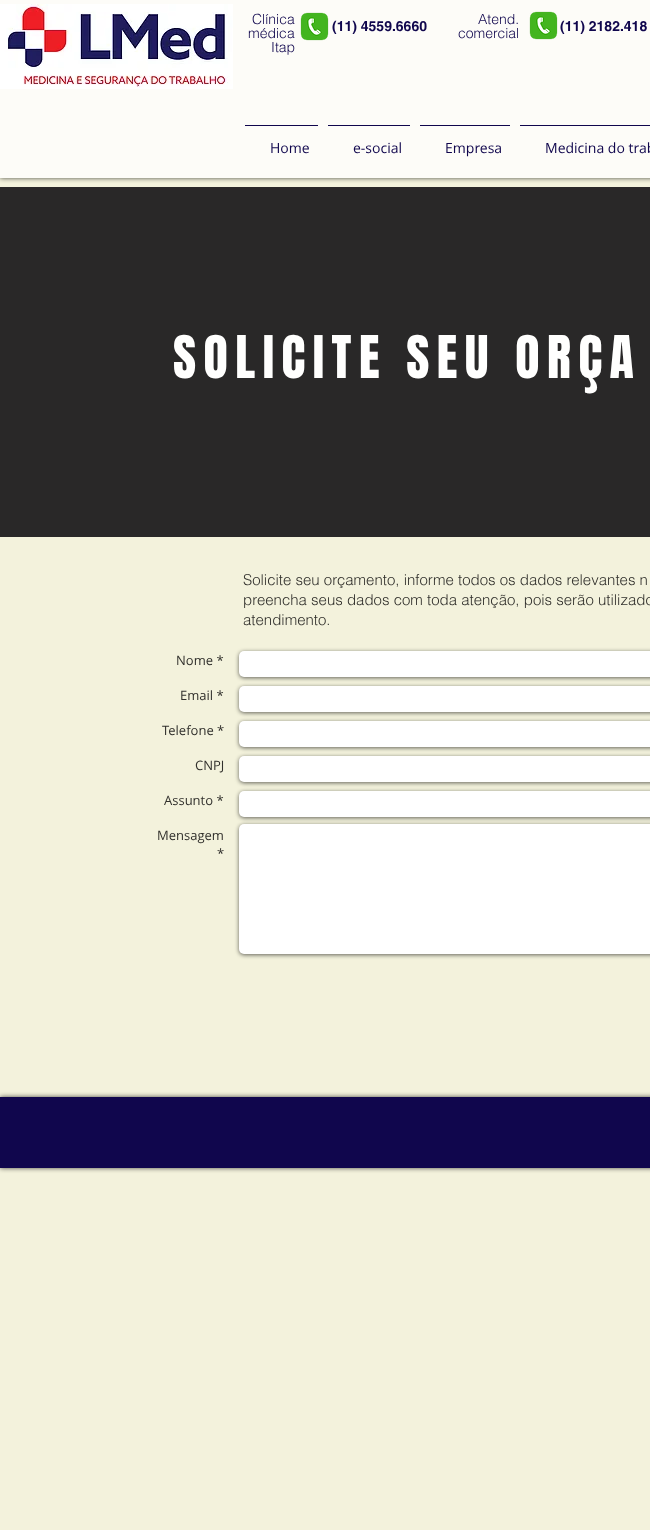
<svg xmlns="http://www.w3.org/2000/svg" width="650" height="1530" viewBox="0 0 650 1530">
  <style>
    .t1 { font: 300 14px helvetica; fill: #10064d; }
    .t2 { font: bold 14px helvetica; fill: #10064d; }
    .t3 { font: 14px Open Sans; fill: #10064d; }
    .t4 { font: 50px Anton; letter-spacing: 7.5px; fill: #fffffe; }
    .t5 { font: 300 15px helvetica; fill: #31302c; }
    .t6 { font: 13px Open Sans; fill: #31302c; }
  </style>
  <rect width="100%" height="100%" fill="#f3f2dc"/>
  <rect x="0" y="0" width="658" height="178" fill="#000000b3" filter="blur(2.5px)"/>
  <rect x="0" y="0" width="650" height="178" fill="#fdfcf8"/>
  <image x="0" y="4" width="233" height="85" href="images/1.png"/>
  <text x="252" y="24" class="t1">Clínica</text>
  <text x="248" y="38" class="t1">médica</text>
  <text x="271" y="52" class="t1">Itap</text>
  <image x="300" y="12" width="29" height="29" href="images/2.png"/>
  <text x="332" y="31" class="t2">(11) 4559.6660</text>
  <text x="478" y="24" class="t1">Atend.</text>
  <text x="458" y="38" class="t1">comercial</text>
  <image x="529" y="11" width="29" height="29" href="images/2.png"/>
  <text x="560" y="31" class="t2">(11) 2182.418</text>
  <rect x="245" y="125" width="73" height="1" fill="#10064d"/>
  <text x="270" y="153" class="t3">Home</text>
  <rect x="328" y="125" width="82" height="1" fill="#10064d"/>
  <text x="353" y="153" class="t3">e-social</text>
  <rect x="420" y="125" width="90" height="1" fill="#10064d"/>
  <text x="445" y="153" class="t3">Empresa</text>
  <rect x="520" y="125" width="130" height="1" fill="#10064d"/>
  <text x="545" y="153" class="t3">Medicina do trab</text>
  <rect x="0" y="187" width="650" height="350" fill="#292828"/>
  <text x="173" y="378" class="t4">SOLICITE SEU ORÇA</text>
  <text x="243" y="585" class="t5">Solicite seu orçamento, informe todos os dados relevantes n</text>
  <text x="243" y="605" class="t5">preencha seus dados com toda atenção, pois serão utilizado</text>
  <text x="243" y="625" class="t5">atendimento.</text>
  <text x="176" y="665" class="t6">Nome *</text>
  <rect x="239" y="652" width="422" height="26" rx="5" fill="#00000099" filter="blur(2px)"/>
  <rect x="239" y="651" width="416" height="26" rx="5" fill="#fff"/>
  <text x="180" y="700" class="t6">Email *</text>
  <rect x="239" y="687" width="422" height="26" rx="5" fill="#00000099" filter="blur(2px)"/>
  <rect x="239" y="686" width="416" height="26" rx="5" fill="#fff"/>
  <text x="162" y="735" class="t6">Telefone *</text>
  <rect x="239" y="722" width="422" height="26" rx="5" fill="#00000099" filter="blur(2px)"/>
  <rect x="239" y="721" width="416" height="26" rx="5" fill="#fff"/>
  <text x="195" y="770" class="t6">CNPJ</text>
  <rect x="239" y="757" width="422" height="26" rx="5" fill="#00000099" filter="blur(2px)"/>
  <rect x="239" y="756" width="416" height="26" rx="5" fill="#fff"/>
  <text x="164" y="805" class="t6">Assunto *</text>
  <rect x="239" y="792" width="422" height="26" rx="5" fill="#00000099" filter="blur(2px)"/>
  <rect x="239" y="791" width="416" height="26" rx="5" fill="#fff"/>
  <text x="157" y="840" class="t6">Mensagem</text>
  <text x="217" y="858" class="t6">*</text>
  <rect x="239" y="825" width="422" height="130" rx="5" fill="#00000099" filter="blur(2px)"/>
  <rect x="239" y="824" width="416" height="130" rx="5" fill="#fff"/>
  <rect x="0" y="1097" width="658" height="71" fill="#000000b3" filter="blur(2.5px)"/>
  <rect x="0" y="1097" width="650" height="71" fill="#10064d"/>
</svg>
